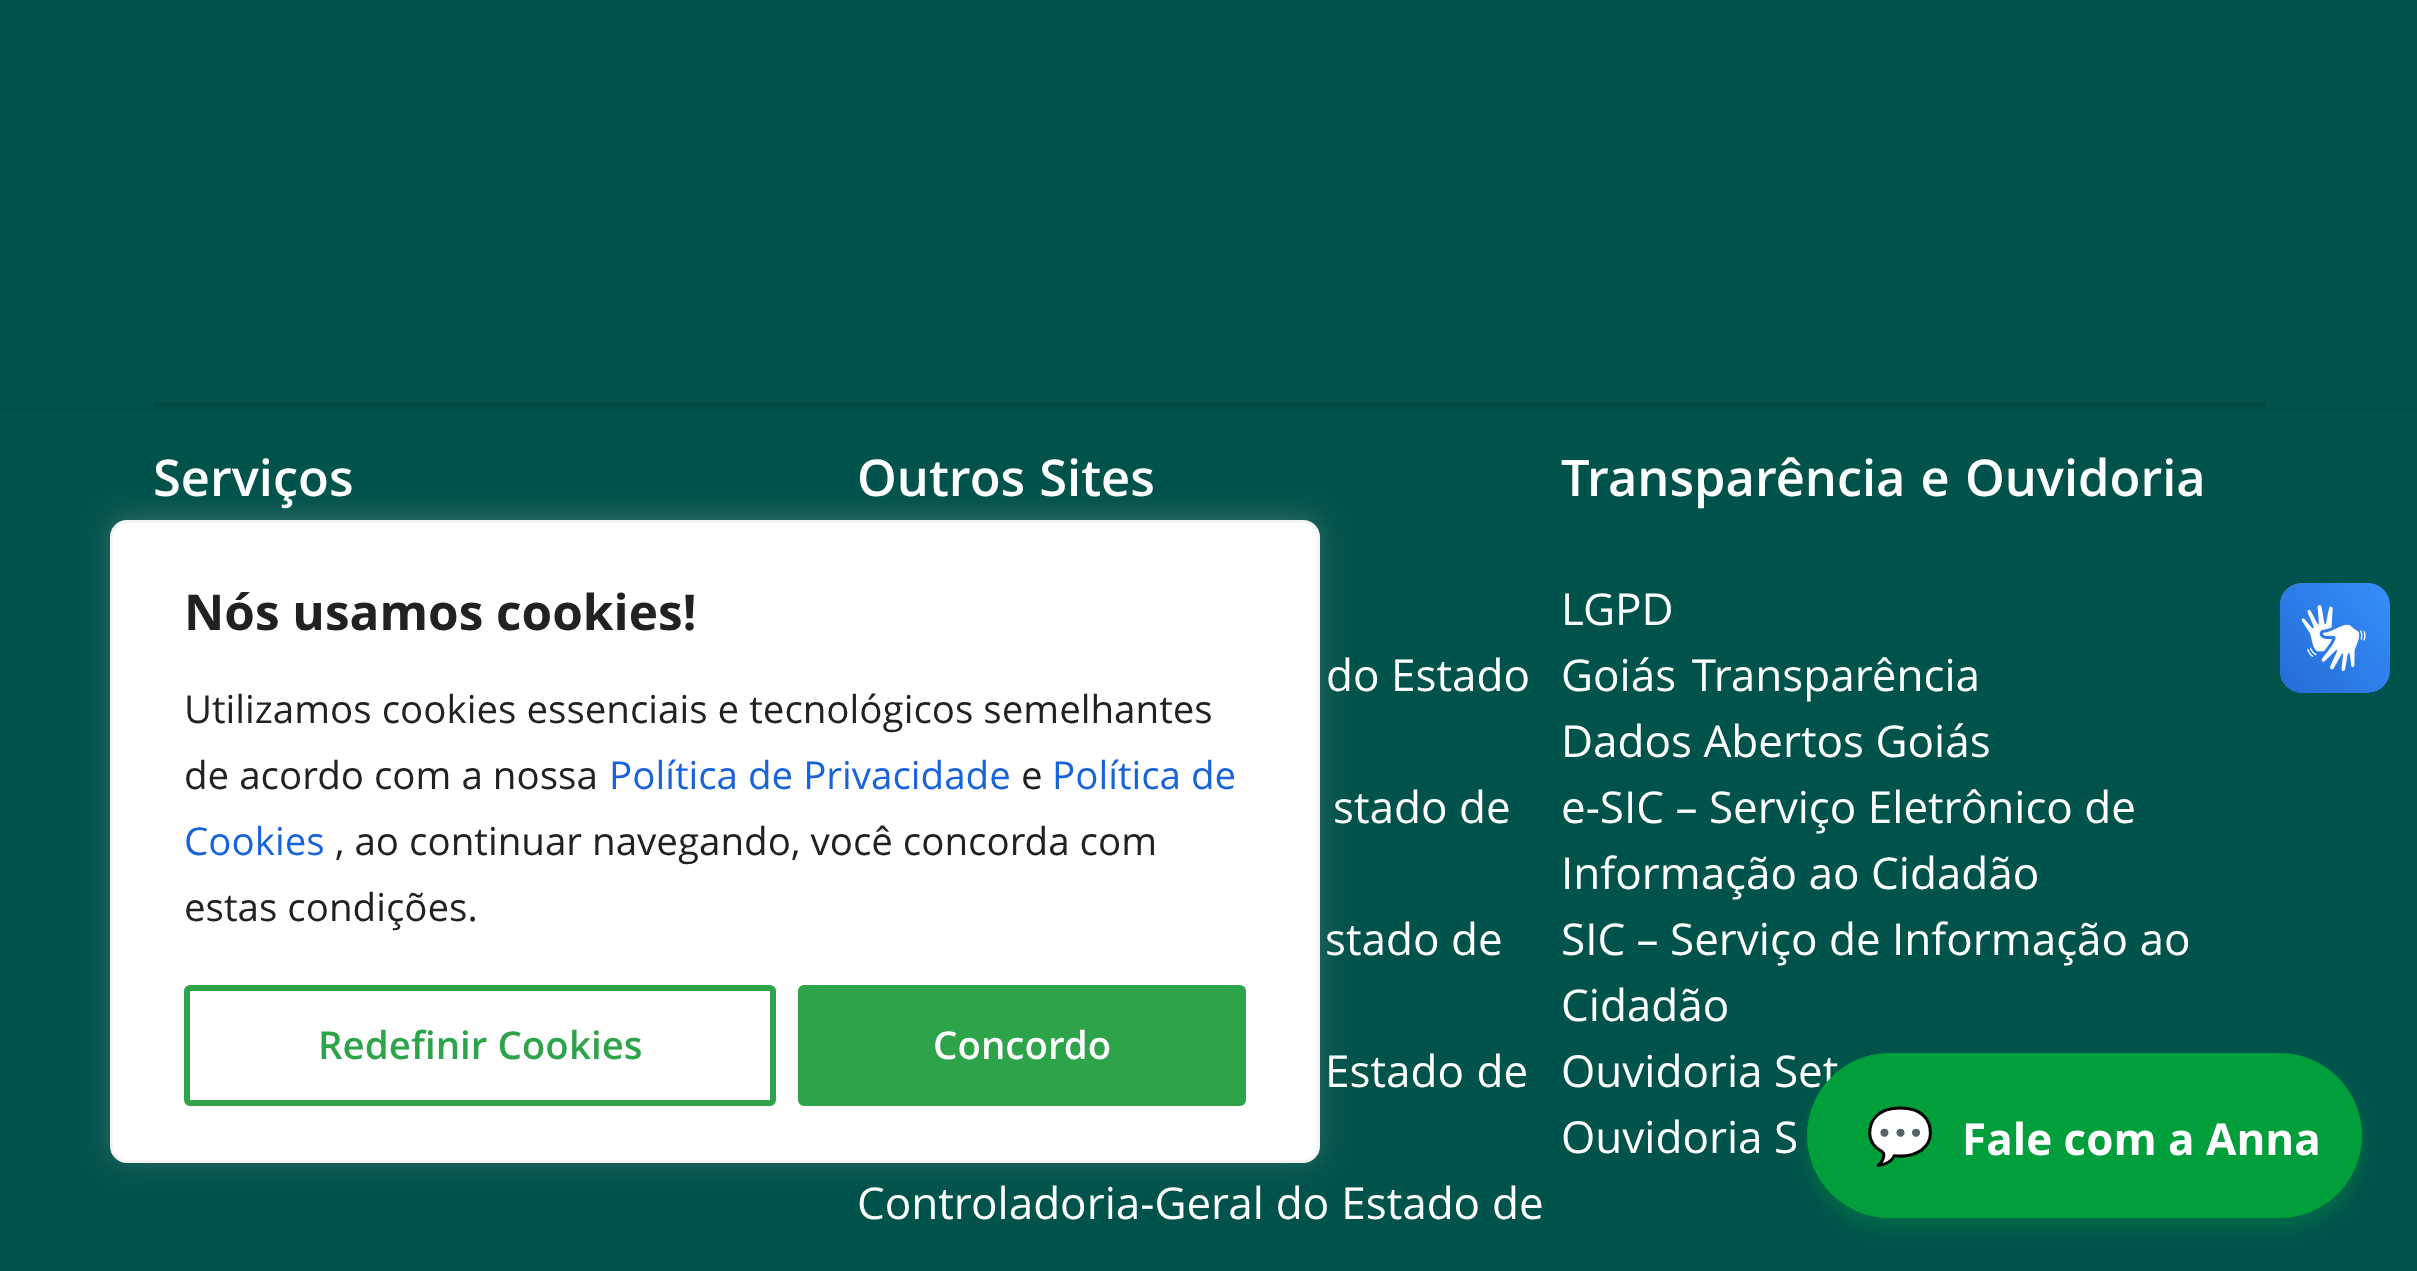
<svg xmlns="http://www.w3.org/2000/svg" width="2417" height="1271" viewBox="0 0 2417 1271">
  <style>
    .t1 { font: 600 50.6px Open Sans; fill: #fff; }
    .t2 { font: 44px Open Sans; fill: #fff; }
    .t3 { font: bold 55px Noto Color Emoji; fill: #fff; }
    .t4 { font: bold 44px Open Sans; fill: #fff; }
    .t5 { font: bold 49.5px Open Sans; fill: #212121; }
    .t6 { font: 38.5px Open Sans; fill: #212121; }
    .t7 { font: 38.5px Open Sans; fill: #1863dc; }
    .t8 { font: 600 38.5px Open Sans; fill: #2da44a; }
    .t9 { font: 600 38.5px Open Sans; fill: #fff; }
  </style>
  <rect width="100%" height="100%" fill="#00534b"/>
  <rect x="154" y="402" width="2112" height="5" fill="#004b44"/>
  <rect x="0" y="407" width="2417" height="3" fill="#004f47"/>
  <text x="153" y="496" class="t1">Serviços</text>
  <text x="857" y="496" word-spacing="1" class="t1">Outros Sites</text>
  <text x="1326" y="691" class="t2">do Estado</text>
  <text x="1333" y="823" class="t2">stado de</text>
  <text x="1325" y="955" class="t2">stado de</text>
  <text x="1325" y="1087" word-spacing="1" class="t2">Estado de</text>
  <text x="857" y="1219" word-spacing="0.5" class="t2">Controladoria-Geral do Estado de</text>
  <text x="1561" y="496" word-spacing="2" class="t1">Transparência e Ouvidoria</text>
  <text x="1561" y="625" class="t2">LGPD</text>
  <text x="1561" y="691" word-spacing="4" class="t2">Goiás Transparência</text>
  <text x="1561" y="757" class="t2">Dados Abertos Goiás</text>
  <text x="1561" y="823" class="t2">e-SIC – Serviço Eletrônico de</text>
  <text x="1561" y="889" class="t2">Informação ao Cidadão</text>
  <text x="1561" y="955" class="t2">SIC – Serviço de Informação ao</text>
  <text x="1561" y="1021" class="t2">Cidadão</text>
  <text x="1561" y="1087" class="t2">Ouvidoria Set</text>
  <text x="1561" y="1153" class="t2">Ouvidoria S</text>
  <image x="2279" y="583" width="111" height="110" href="images/1.png"/>
  <image x="2280" y="583" width="110" height="110" href="images/2.png"/>
  <rect x="1807" y="1064" width="555" height="165" rx="82.5" fill="#009f3b4d" filter="blur(8px)"/>
  <rect x="1807" y="1053" width="555" height="165" rx="82.5" fill="#009f3b"/>
  <text x="1866" y="1155" class="t3">💬</text>
  <text x="1962" y="1155" class="t4">Fale com a Anna</text>
  <rect x="110" y="517" width="1210" height="644" rx="17" fill="#acabab4d" filter="blur(14px)"/>
  <rect x="111.5" y="521.5" width="1207" height="640" rx="15.5" fill="#fff" stroke="#f4f4f4" stroke-width="3"/>
  <text x="184" y="630" class="t5">Nós usamos cookies!</text>
  <text x="184" y="723" class="t6">Utilizamos cookies essenciais e tecnológicos semelhantes</text>
  <text x="184" y="789" class="t6">de acordo com a nossa</text>
  <text x="609" y="789" class="t7">Política de Privacidade</text>
  <text x="1021" y="789" class="t6">e</text>
  <text x="1052" y="789" class="t7">Política de</text>
  <text x="184" y="855" class="t7">Cookies</text>
  <text x="335" y="855" class="t6">, ao continuar navegando, você concorda com</text>
  <text x="184" y="921" class="t6">estas condições.</text>
  <rect x="187" y="988" width="586" height="115" rx="3" fill="none" stroke="#2da44a" stroke-width="6"/>
  <text x="318" y="1059" class="t8">Redefinir Cookies</text>
  <rect x="801" y="988" width="442" height="115" rx="3" fill="#2da44a" stroke="#2da44a" stroke-width="6"/>
  <text x="933" y="1059" class="t9">Concordo</text>
</svg>
